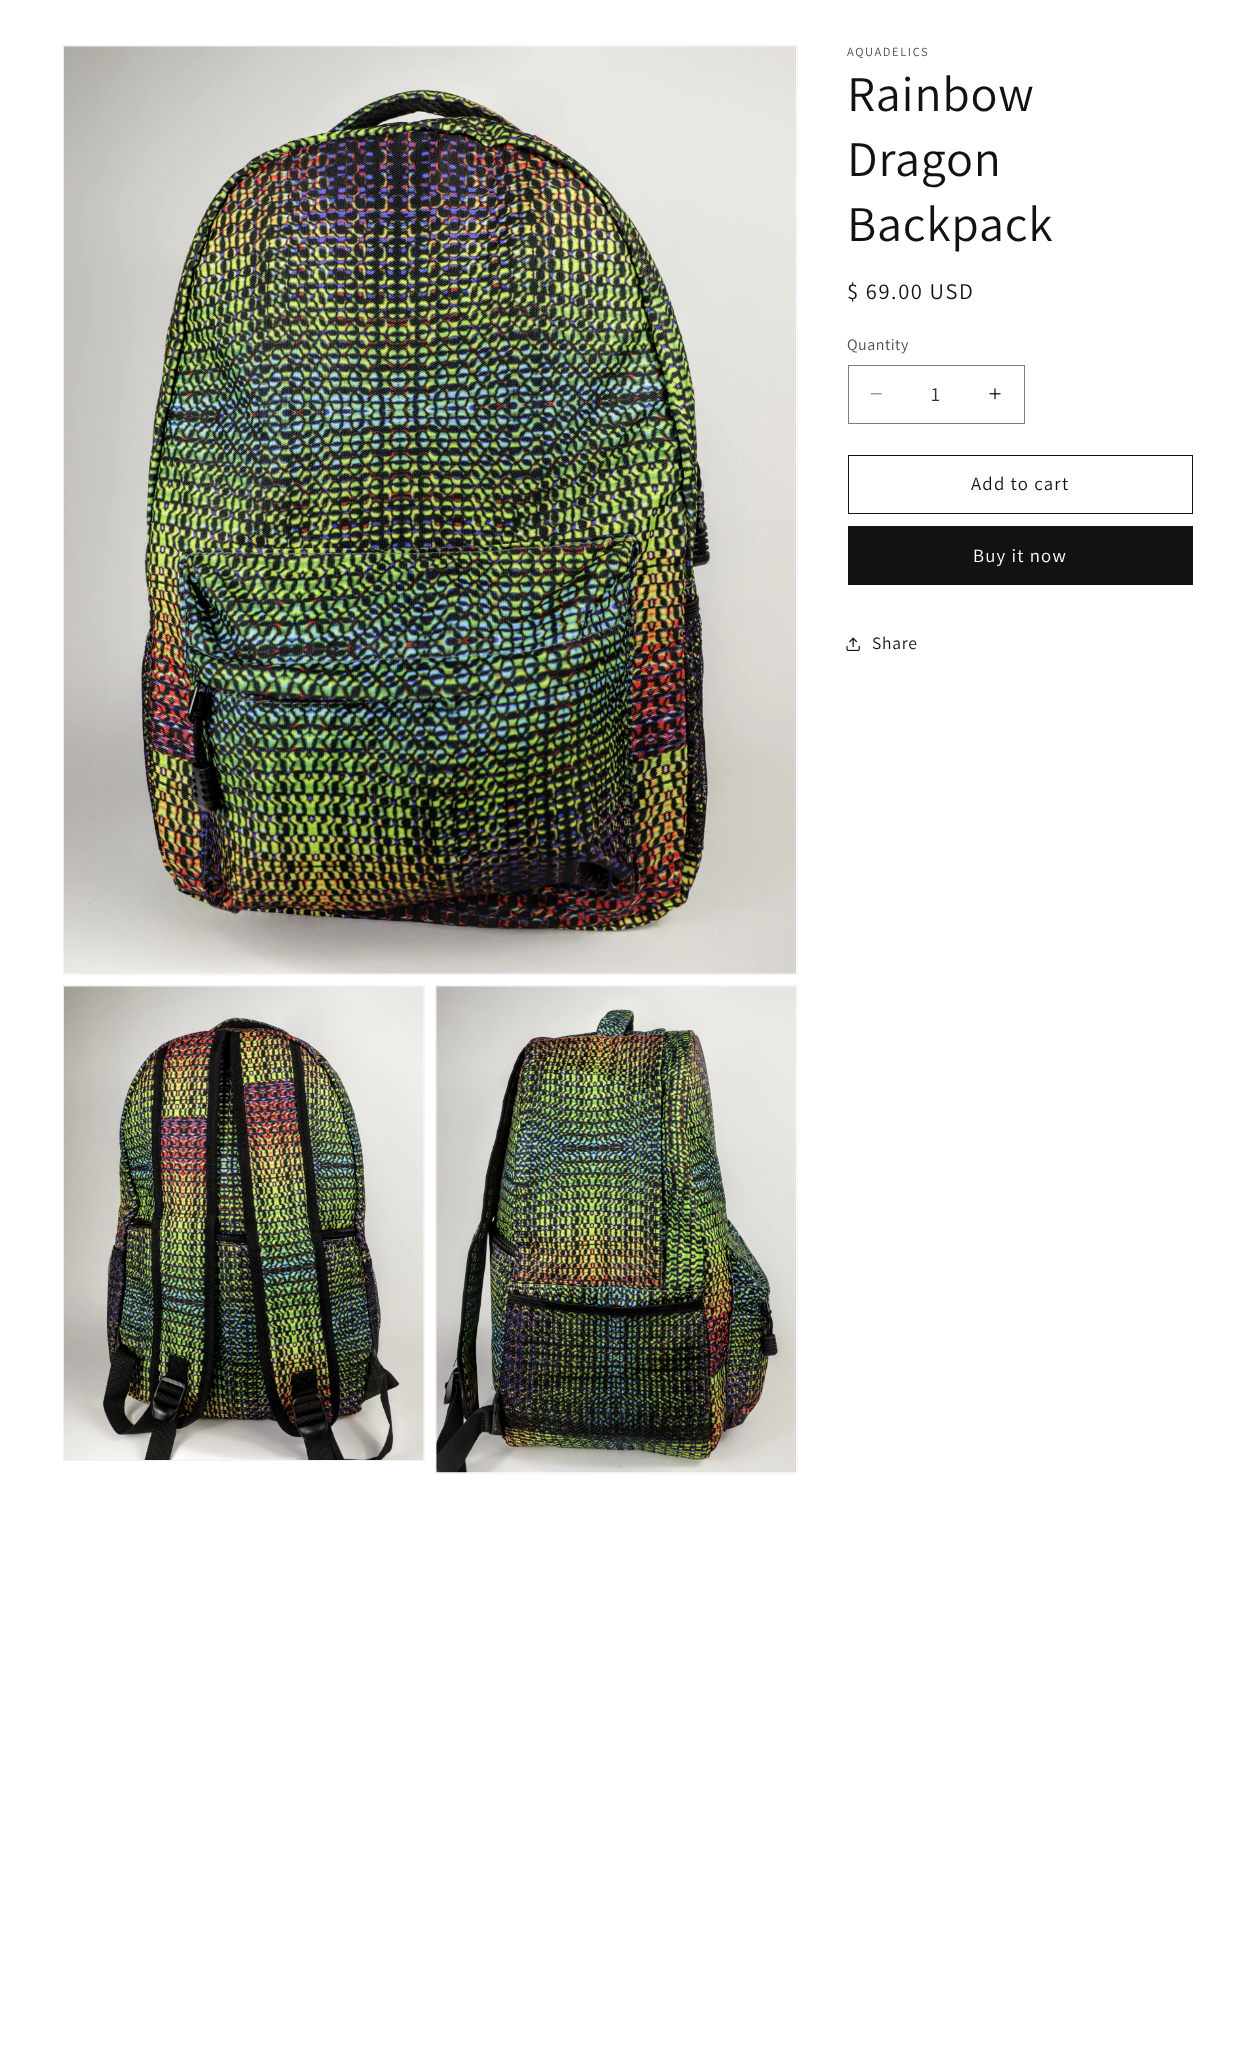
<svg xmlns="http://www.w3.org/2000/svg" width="1255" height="2045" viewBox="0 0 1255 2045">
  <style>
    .t1 { font: 12.5px Assistant; letter-spacing: 1.6px; fill: #4d4d4d; }
    .t2 { font: 50px Assistant; letter-spacing: 0.75px; fill: #121212; }
    .t3 { font: 22.5px Assistant; letter-spacing: 1.6px; fill: #121212; }
    .t4 { font: 16px Assistant; letter-spacing: 0.5px; fill: #4d4d4d; }
    .t5 { font: 20px Assistant; fill: #363636; }
    .t6 { font: 18.75px Assistant; letter-spacing: 1.25px; fill: #121212; }
    .t7 { font: 18.75px Assistant; letter-spacing: 1.25px; fill: #fff; }
    .t8 { font: 17.5px Assistant; letter-spacing: 0.75px; fill: #121212; }
  </style>
  <rect width="100%" height="100%" fill="#fff"/>
  <rect x="63.5" y="45.5" width="734" height="929" fill="none" stroke="#f3f3f3"/>
  <image x="63" y="46" width="733" height="928" href="images/1.png"/>
  <rect x="63.5" y="985.5" width="361" height="475" fill="none" stroke="#f3f3f3"/>
  <image x="63" y="986" width="361" height="474" href="images/2.png"/>
  <rect x="435.5" y="985.5" width="362" height="488" fill="none" stroke="#f3f3f3"/>
  <image x="436" y="986" width="360" height="487" href="images/3.png"/>
  <text x="847" y="56" class="t1">AQUADELICS</text>
  <text x="847" y="111" class="t2">Rainbow</text>
  <text x="847" y="176" class="t2">Dragon</text>
  <text x="847" y="241" class="t2">Backpack</text>
  <text x="847" y="299" class="t3">$ 69.00 USD</text>
  <text x="847" y="350" class="t4">Quantity</text>
  <image x="870" y="393" width="12" height="2" href="images/4.png"/>
  <image x="989" y="388" width="12" height="12" href="images/5.png"/>
  <rect x="848.5" y="365.5" width="176" height="58" fill="none" stroke="#7d7d7d"/>
  <text x="931" y="401" class="t5">1</text>
  <rect x="848.5" y="455.5" width="344" height="58" fill="none" stroke="#121212"/>
  <text x="971" y="490" class="t6">Add to cart</text>
  <rect x="848" y="526" width="345" height="59" fill="#121212"/>
  <text x="973" y="562" class="t7">Buy it now</text>
  <image x="846" y="637" width="14" height="14" href="images/6.png"/>
  <text x="872" y="649" class="t8">Share</text>
</svg>
